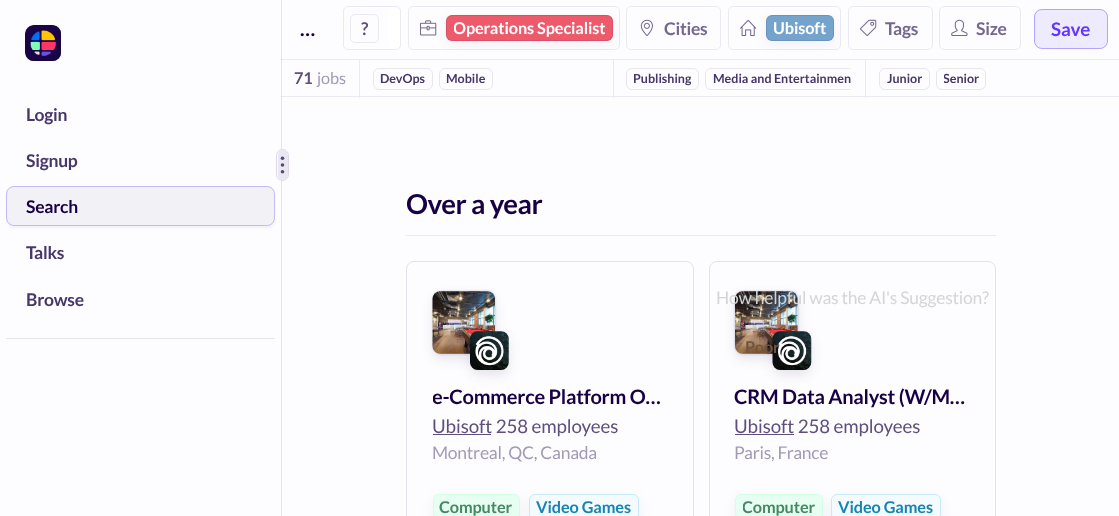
<svg xmlns="http://www.w3.org/2000/svg" width="1119" height="516" viewBox="0 0 1119 516">
  <style>
    .t1 { font: bold 17.5px Lato; letter-spacing: -0.25px; fill: #47366a; }
    .t2 { font: bold 17.5px Lato; letter-spacing: -0.25px; fill: #180045; }
    .t3 { font: bold 20px Lato; letter-spacing: -0.25px; fill: #180045; }
    .t4 { font: bold 17.5px Lato; letter-spacing: -0.25px; fill: #5e4f7d; }
    .t5 { font: bold 16.25px Lato; letter-spacing: -0.1px; fill: #fff; }
    .t6 { font: bold 17.5px Lato; letter-spacing: -0.25px; fill: #75688f; }
    .t7 { font: bold 18.75px Lato; fill: #6236ff; }
    .t8 { font: bold 16.25px Lato; letter-spacing: -0.1px; fill: #5e4f7d; }
    .t9 { font: 16.25px Lato; letter-spacing: -0.1px; fill: #a39bb5; }
    .t10 { font: bold 12.5px Lato; fill: #47366a; }
    .t11 { font: bold 27.5px Lato; letter-spacing: -0.5px; fill: #180045; }
    .t12 { font: 18.75px Lato; letter-spacing: -0.1px; fill: #5e4f7d; }
    .t13 { font: 17.5px Lato; letter-spacing: -0.25px; fill: #a39bb5; }
    .t14 { font: bold 16.25px Lato; letter-spacing: -0.1px; fill: #458964; }
    .t15 { font: bold 16.25px Lato; letter-spacing: -0.1px; fill: #1684b3; }
    .t16 { font: 17.5px Lato; letter-spacing: -0.25px; fill: #d4d5d6; }
    .t17 { font: bold 16.25px Lato; letter-spacing: -0.1px; fill: #705540; }
  </style>
  <defs>
    <clipPath id="clip1"><rect x="454" y="13" width="151" height="32"/></clipPath>
    <clipPath id="clip2"><rect x="634" y="63" width="57" height="32"/></clipPath>
    <clipPath id="clip3"><rect x="944" y="63" width="35" height="32"/></clipPath>
    <clipPath id="clip4"><rect x="433" y="381" width="235" height="29"/></clipPath>
    <clipPath id="clip5"><rect x="743" y="490" width="72" height="26"/></clipPath>
  </defs>
  <rect width="100%" height="100%" fill="#fdfdff"/>
  <image x="25" y="25" width="36" height="36" href="images/1.png"/>
  <rect x="6" y="338" width="269" height="1" fill="#e6e4ec"/>
  <text x="26" y="121" class="t1">Login</text>
  <text x="26" y="167" class="t1">Signup</text>
  <rect x="8" y="190" width="266" height="38" rx="6" fill="#1904450d" filter="blur(1px)"/>
  <rect x="6" y="186" width="269" height="40" rx="8" fill="#f2f1f6"/>
  <rect x="6.5" y="186.5" width="268" height="39" rx="7.5" fill="none" stroke="#6236ff4d"/>
  <text x="26" y="213" class="t2">Search</text>
  <text x="26" y="259" class="t1">Talks</text>
  <text x="26" y="306" class="t1">Browse</text>
  <rect x="281" y="98" width="1" height="418" fill="#e6e4ec"/>
  <rect x="276.5" y="149.5" width="12" height="31" rx="6" fill="none" stroke="#ddd7e8"/>
  <rect x="278" y="150" width="10" height="30" rx="5" fill="#e9e7f2"/>
  <circle cx="282.5" cy="158.3" r="1.8" fill="#574879"/>
  <circle cx="282.5" cy="165" r="1.8" fill="#574879"/>
  <circle cx="282.5" cy="171.7" r="1.8" fill="#574879"/>
  <rect x="281" y="0" width="1" height="98" fill="#e8e6ec"/>
  <rect x="281" y="59" width="838" height="1" fill="#ece9f2"/>
  <rect x="281" y="59" width="1" height="1" fill="#d7d2e1"/>
  <text x="300" y="36" class="t3">…</text>
  <rect x="343.5" y="6.5" width="57" height="43" rx="4.5" fill="none" stroke="#ece9f2"/>
  <rect x="350.5" y="14.5" width="28" height="28" rx="4.5" fill="none" stroke="#ece9f2"/>
  <text x="361" y="35" class="t4">?</text>
  <rect x="388" y="8" width="12" height="41" rx="5" fill="#fff"/>
  <rect x="408.5" y="6.5" width="211" height="43" rx="4.5" fill="none" stroke="#ece9f2"/>
  <image x="420" y="20" width="17" height="16" href="images/2.png"/>
  <rect x="446" y="19" width="167" height="26" rx="6" fill="#1904450d" filter="blur(6px)"/>
  <rect x="446" y="15" width="167" height="26" rx="6" fill="#ed5a6c"/>
  <rect x="446.5" y="15.5" width="166" height="25" rx="5.5" fill="none" stroke="#1904451a"/>
  <g clip-path="url(#clip1)">
    <text x="453" y="34" class="t5">Operations Specialist</text>
  </g>
  <rect x="626.5" y="6.5" width="94" height="43" rx="4.5" fill="none" stroke="#ece9f2"/>
  <image x="640" y="19" width="13" height="17" href="images/3.png"/>
  <text x="664" y="35" class="t6">Cities</text>
  <rect x="728.5" y="6.5" width="112" height="43" rx="4.5" fill="none" stroke="#ece9f2"/>
  <image x="740" y="19" width="17" height="17" href="images/4.png"/>
  <rect x="766" y="19" width="68" height="26" rx="6" fill="#1904450d" filter="blur(6px)"/>
  <rect x="766" y="15" width="68" height="26" rx="6" fill="#74a4cc"/>
  <rect x="766.5" y="15.5" width="67" height="25" rx="5.5" fill="none" stroke="#1904451a"/>
  <text x="773" y="34" class="t5">Ubisoft</text>
  <rect x="848.5" y="6.5" width="84" height="43" rx="4.5" fill="none" stroke="#ece9f2"/>
  <image x="860" y="19" width="17" height="17" href="images/5.png"/>
  <text x="885" y="35" class="t6">Tags</text>
  <rect x="939.5" y="6.5" width="81" height="43" rx="4.5" fill="none" stroke="#ece9f2"/>
  <image x="951" y="19" width="17" height="17" href="images/6.png"/>
  <text x="976" y="35" class="t6">Size</text>
  <rect x="1034" y="9" width="74" height="40" rx="8" fill="#efebff"/>
  <rect x="1034.5" y="9.5" width="73" height="39" rx="7.5" fill="none" stroke="#6236ff66"/>
  <text x="1051" y="36" class="t7">Save</text>
  <rect x="281" y="96" width="838" height="1" fill="#ece9f2"/>
  <rect x="281" y="96" width="1" height="1" fill="#d7d2e1"/>
  <rect x="359" y="60" width="1" height="38" fill="#ece9f2"/>
  <text x="294" y="84" class="t8">71</text>
  <text x="317" y="84" class="t9">jobs</text>
  <rect x="613" y="60" width="1" height="38" fill="#ece9f2"/>
  <rect x="373.5" y="68.5" width="59" height="21" rx="5.5" fill="none" stroke="#e8e6ec"/>
  <text x="380" y="83" class="t10">DevOps</text>
  <rect x="439.5" y="68.5" width="53" height="21" rx="5.5" fill="none" stroke="#e8e6ec"/>
  <text x="446" y="83" class="t10">Mobile</text>
  <rect x="865" y="60" width="1" height="38" fill="#ece9f2"/>
  <rect x="626.5" y="68.5" width="72" height="21" rx="5.5" fill="none" stroke="#e8e6ec"/>
  <g clip-path="url(#clip2)">
    <text x="633" y="83" class="t10">Publishing</text>
  </g>
  <path d="M711 68C708 68 705 71 705 74V84C705 87 708 90 711 90H848C849 90 850 90 851 89H711C708 89 706 87 706 84V74C706 71 708 69 711 69H851L848 68Z" fill="#e8e6ec"/>
  <text x="713" y="83" class="t10">Media and Entertainmen</text>
  <rect x="879.5" y="68.5" width="50" height="21" rx="5.5" fill="none" stroke="#e8e6ec"/>
  <text x="887" y="83" class="t10">Junior</text>
  <rect x="936.5" y="68.5" width="49" height="21" rx="5.5" fill="none" stroke="#e8e6ec"/>
  <g clip-path="url(#clip3)">
    <text x="943" y="83" class="t10">Senior</text>
  </g>
  <rect x="406" y="235" width="590" height="1" fill="#ece9f2"/>
  <text x="406" y="214" class="t11">Over a year</text>
  <rect x="406.5" y="261.5" width="287" height="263" rx="7.5" fill="none" stroke="#e3e1e9"/>
  <rect x="433" y="291" width="62" height="63" rx="8" fill="#19044533" filter="blur(1px)"/>
  <rect x="433" y="296" width="62" height="63" rx="8" fill="#1904451a" filter="blur(6px)"/>
  <image x="432" y="291" width="63" height="63" href="images/7.png"/>
  <rect x="470" y="336" width="39" height="39" rx="8" fill="#1904451a" filter="blur(6px)"/>
  <image x="470" y="331" width="39" height="39" href="images/8.png"/>
  <g clip-path="url(#clip4)">
    <text x="432" y="404" class="t3">e-Commerce Platform O…</text>
  </g>
  <rect x="433" y="434" width="58" height="1" fill="#5e4f7d"/>
  <text x="432" y="433" class="t12">Ubisoft 258 employees</text>
  <text x="432" y="459" class="t13">Montreal, QC, Canada</text>
  <rect x="433" y="498" width="87" height="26" rx="6" fill="#1904450d" filter="blur(6px)"/>
  <rect x="433" y="494" width="87" height="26" rx="6" fill="#e7fff2"/>
  <rect x="433.5" y="494.5" width="86" height="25" rx="5.5" fill="none" stroke="#80ffbb33"/>
  <rect x="529" y="498" width="110" height="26" rx="6" fill="#1904450d" filter="blur(6px)"/>
  <text x="439" y="513" class="t14">Computer</text>
  <rect x="529" y="494" width="110" height="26" rx="6" fill="#f3fbfe"/>
  <rect x="529.5" y="494.5" width="109" height="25" rx="5.5" fill="none" stroke="#1ca8e333"/>
  <text x="536" y="513" class="t15">Video Games</text>
  <rect x="709.5" y="261.5" width="286" height="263" rx="7.5" fill="none" stroke="#e3e1e9"/>
  <rect x="735" y="291" width="63" height="63" rx="8" fill="#19044533" filter="blur(1px)"/>
  <rect x="735" y="296" width="63" height="63" rx="8" fill="#1904451a" filter="blur(6px)"/>
  <image x="735" y="291" width="63" height="63" href="images/9.png"/>
  <rect x="773" y="336" width="38" height="39" rx="8" fill="#1904451a" filter="blur(6px)"/>
  <image x="772" y="331" width="40" height="39" href="images/10.png"/>
  <text x="734" y="404" class="t3">CRM Data Analyst (W/M…</text>
  <rect x="735" y="434" width="59" height="1" fill="#5e4f7d"/>
  <text x="734" y="433" class="t12">Ubisoft 258 employees</text>
  <text x="734" y="459" class="t13">Paris, France</text>
  <rect x="735" y="498" width="88" height="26" rx="6" fill="#1904450d" filter="blur(6px)"/>
  <rect x="735" y="494" width="88" height="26" rx="6" fill="#e7fff2"/>
  <rect x="735.5" y="494.5" width="87" height="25" rx="5.5" fill="none" stroke="#80ffbb33"/>
  <rect x="831" y="498" width="110" height="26" rx="6" fill="#1904450d" filter="blur(6px)"/>
  <g clip-path="url(#clip5)">
    <text x="742" y="513" class="t14">Computer</text>
  </g>
  <rect x="831" y="494" width="110" height="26" rx="6" fill="#f3fbfe"/>
  <rect x="831.5" y="494.5" width="109" height="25" rx="5.5" fill="none" stroke="#1ca8e333"/>
  <text x="838" y="513" class="t15">Video Games</text>
  <text x="716" y="304" class="t16">How helpful was the AI's Suggestion?</text>
  <text x="745" y="353" class="t17">Poor</text>
</svg>
